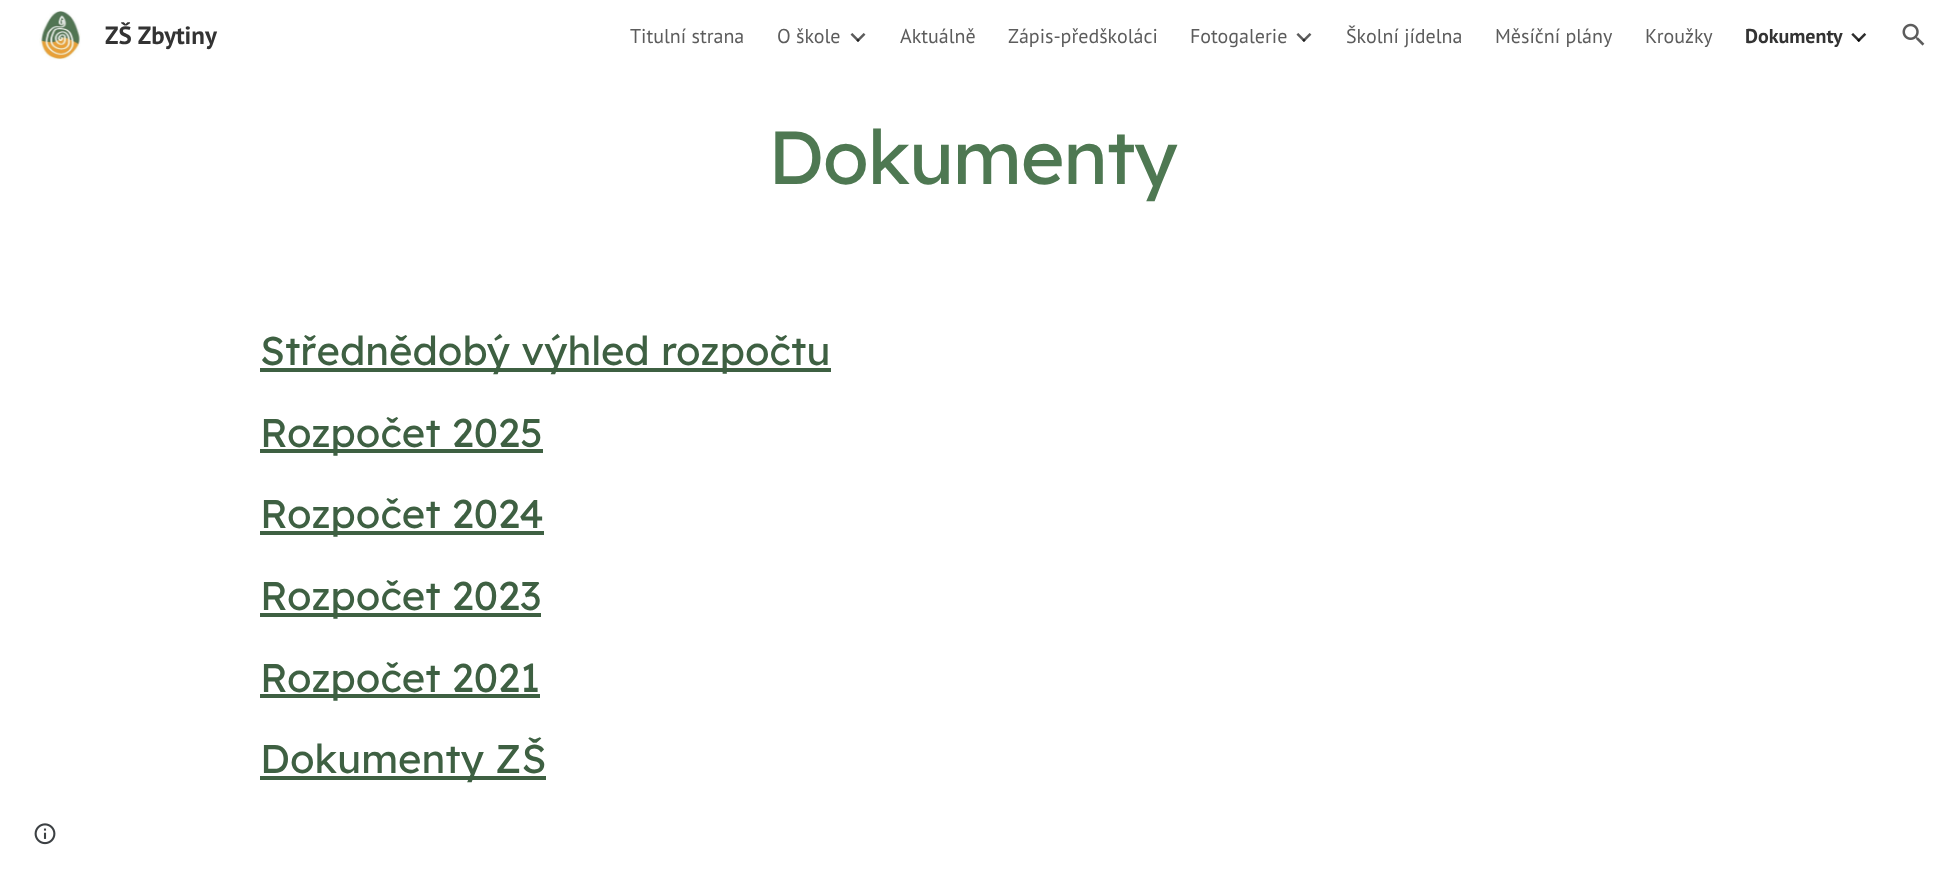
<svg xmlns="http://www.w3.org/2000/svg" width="1943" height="876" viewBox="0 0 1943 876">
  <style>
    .t1 { font: bold 25px PT Sans; fill: #333; }
    .t2 { font: 20px PT Sans; fill: #5c5c5c; }
    .t3 { font: bold 20px PT Sans; fill: #333; }
    .t4 { font: 75px Lexend; letter-spacing: -1.25px; fill: #4e7852; }
    .t5 { font: 40px Lexend; fill: #3e6042; }
  </style>
  <rect width="100%" height="100%" fill="#fff"/>
  <image x="39" y="10" width="42" height="50" href="images/1.png"/>
  <text x="105" y="44" class="t1">ZŠ Zbytiny</text>
  <text x="630" y="43" class="t2">Titulní strana</text>
  <text x="777" y="43" class="t2">O škole</text>
  <image x="850" y="33" width="16" height="9" href="images/2.png"/>
  <text x="900" y="43" class="t2">Aktuálně</text>
  <text x="1008" y="43" class="t2">Zápis-předškoláci</text>
  <text x="1190" y="43" class="t2">Fotogalerie</text>
  <image x="1296" y="33" width="16" height="9" href="images/3.png"/>
  <text x="1346" y="43" class="t2">Školní jídelna</text>
  <text x="1495" y="43" class="t2">Měsíční plány</text>
  <text x="1645" y="43" class="t2">Kroužky</text>
  <text x="1745" y="43" class="t3">Dokumenty</text>
  <image x="1851" y="33" width="16" height="9" href="images/4.png"/>
  <image x="1902" y="23" width="23" height="23" href="images/5.png"/>
  <text x="768" y="184" class="t4">Dokumenty</text>
  <rect x="260" y="368" width="571" height="4" fill="#3e6042"/>
  <text x="260" y="365" class="t5">Střednědobý výhled rozpočtu</text>
  <rect x="260" y="449" width="283" height="4" fill="#3e6042"/>
  <text x="260" y="447" class="t5">Rozpočet 2025</text>
  <rect x="260" y="531" width="284" height="4" fill="#3e6042"/>
  <text x="260" y="528" class="t5">Rozpočet 2024</text>
  <rect x="260" y="613" width="281" height="4" fill="#3e6042"/>
  <text x="260" y="610" class="t5">Rozpočet 2023</text>
  <rect x="260" y="694" width="280" height="4" fill="#3e6042"/>
  <text x="260" y="692" class="t5">Rozpočet 2021</text>
  <rect x="260" y="776" width="286" height="4" fill="#3e6042"/>
  <text x="260" y="773" class="t5">Dokumenty ZŠ</text>
  <image x="34" y="823" width="22" height="22" href="images/6.png"/>
</svg>
